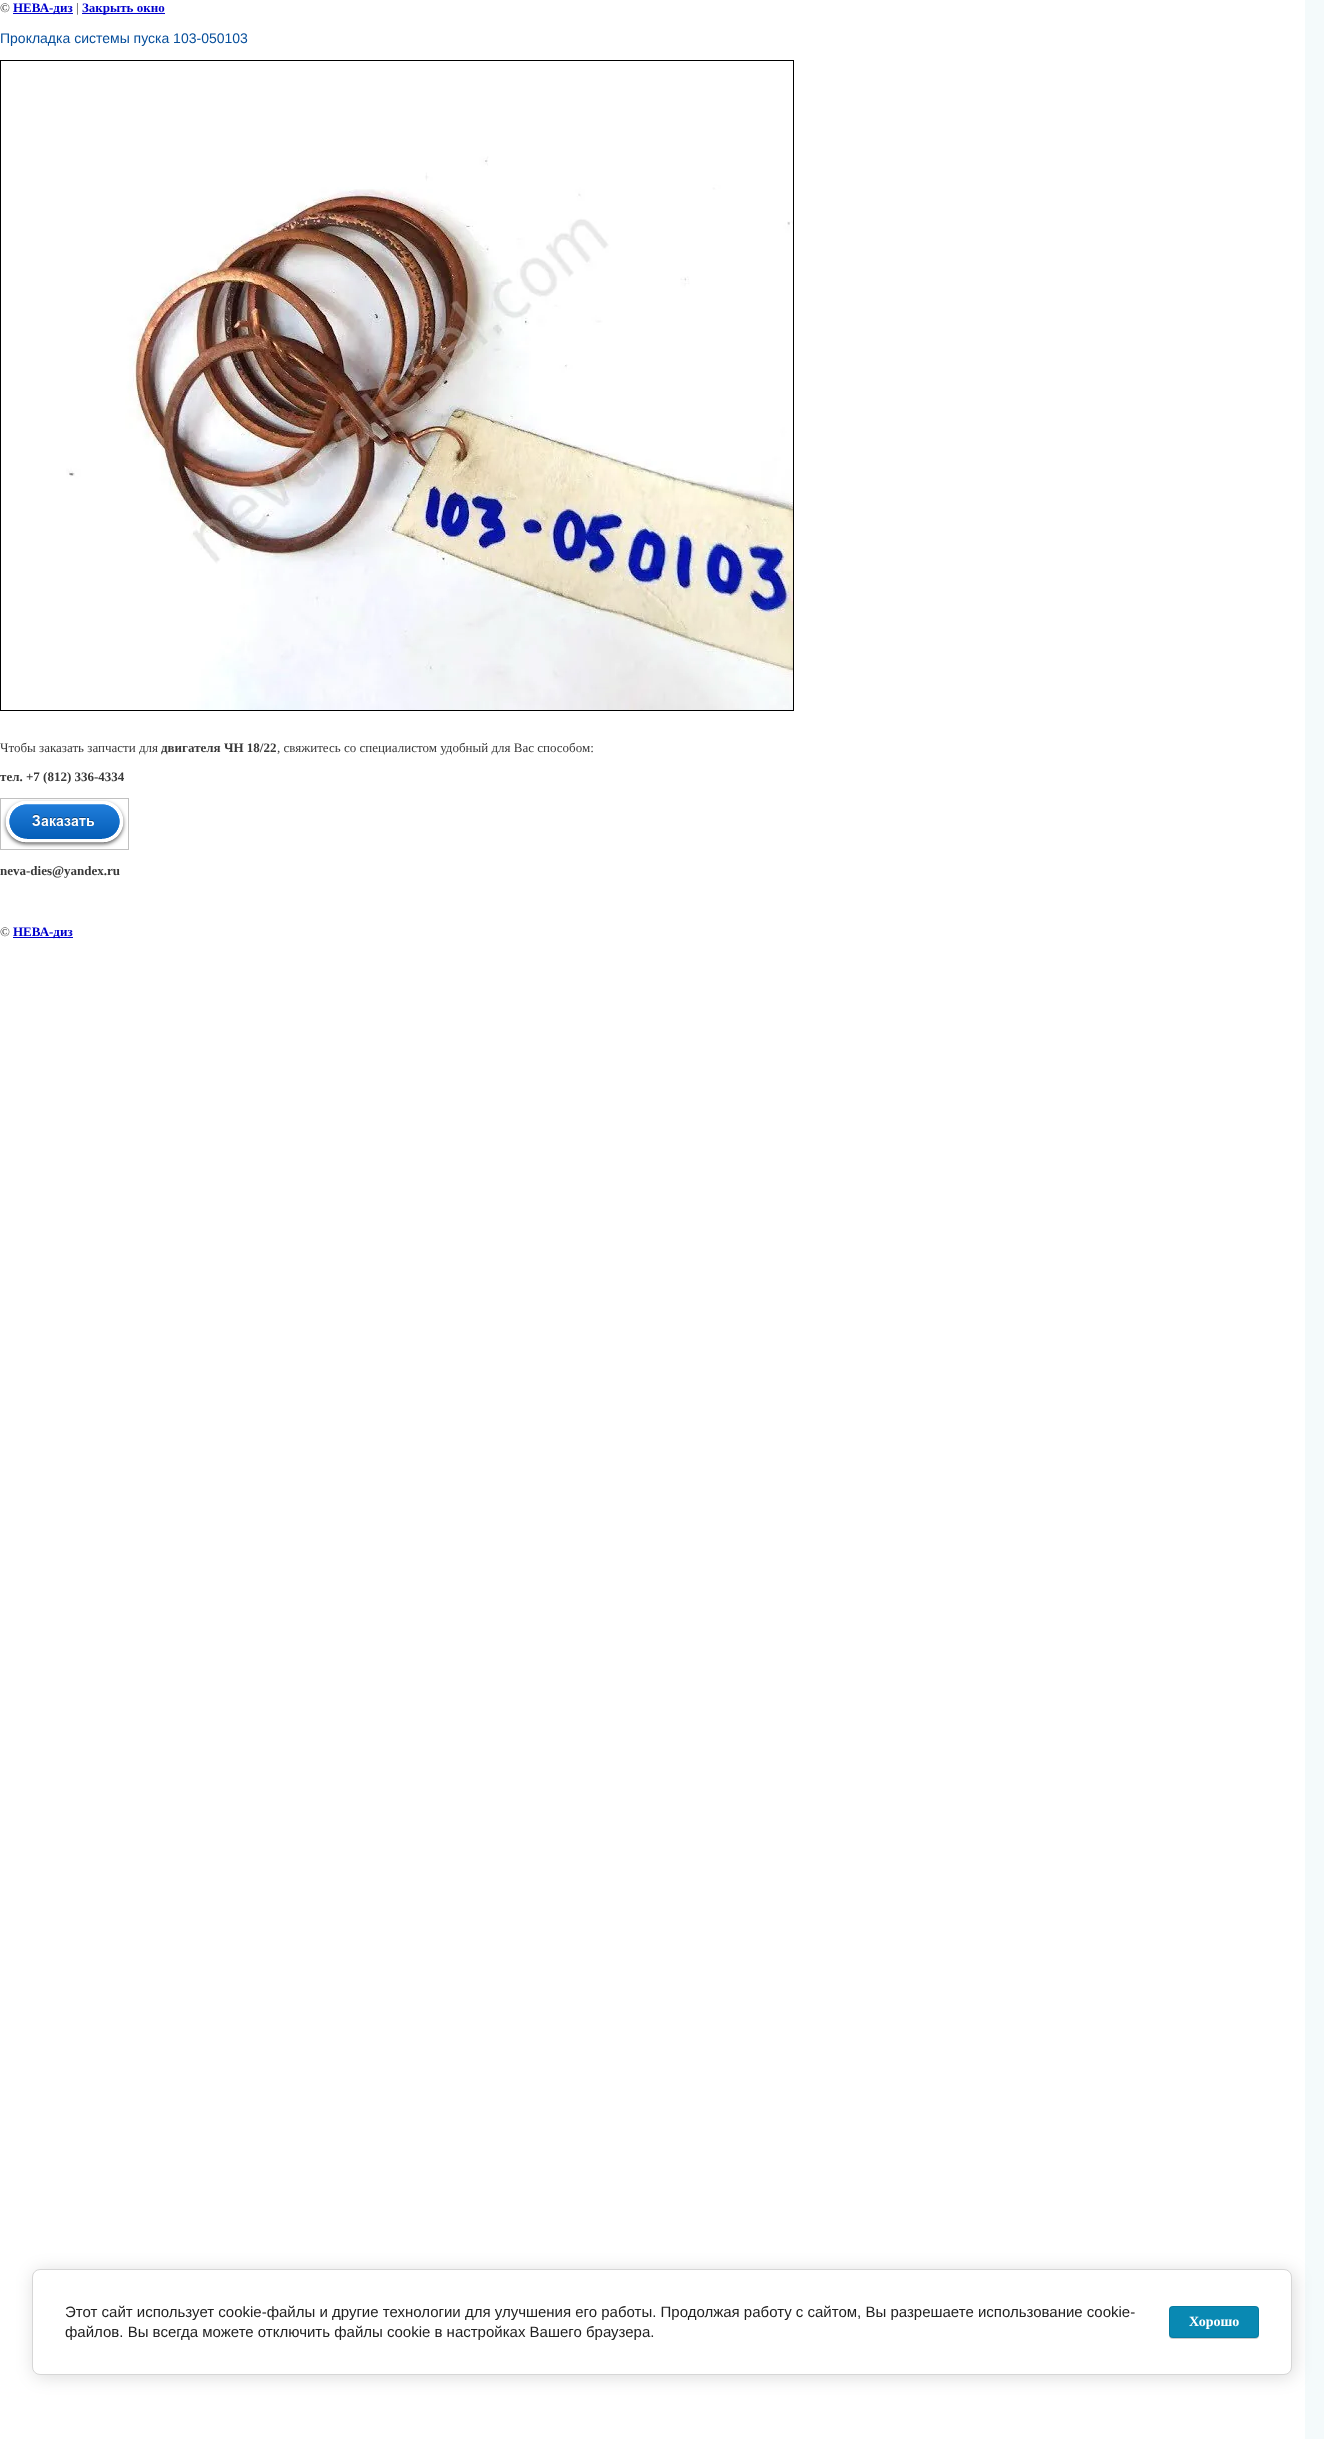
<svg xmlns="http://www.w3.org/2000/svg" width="1324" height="2439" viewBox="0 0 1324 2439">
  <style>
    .t1 { font: 13px Liberation Serif; fill: #393939; }
    .t2 { font: bold 13px Liberation Serif; fill: #00c; }
    .t3 { font: 14px Liberation Sans; fill: #054d9a; }
    .t4 { font: bold 13px Liberation Serif; fill: #393939; }
    .t5 { font: 15px Liberation Sans; fill: #212121; }
    .t6 { font: bold 14px Liberation Serif; fill: #fff; }
  </style>
  <rect width="100%" height="100%" fill="#fff"/>
  <rect x="1305" y="0" width="19" height="2439" fill="#f4fafb"/>
  <text x="0" y="12" class="t1">©</text>
  <rect x="13" y="13" width="60" height="1" fill="#00c"/>
  <text x="13" y="12" class="t2">НЕВА-диз</text>
  <text x="76" y="12" class="t1">|</text>
  <rect x="82" y="13" width="83" height="1" fill="#00c"/>
  <text x="82" y="12" class="t2">Закрыть окно</text>
  <text x="0" y="43" class="t3">Прокладка системы пуска 103-050103</text>
  <rect x="0.5" y="60.5" width="793" height="650" fill="none" stroke="#000"/>
  <image x="66" y="156" width="727" height="554" href="images/1.png"/>
  <text x="0" y="752" class="t1">Чтобы заказать запчасти для</text>
  <text x="161" y="752" class="t4">двигателя ЧН 18/22</text>
  <text x="277" y="752" class="t1">, свяжитесь со специалистом удобный для Вас способом:</text>
  <text x="0" y="781" class="t4">тел. +7 (812) 336-4334</text>
  <rect x="0.5" y="798.5" width="128" height="51" fill="none" stroke="#c0c0c0"/>
  <image x="2" y="799" width="125" height="49" href="images/2.png"/>
  <text x="0" y="875" class="t4">neva-dies@yandex.ru</text>
  <text x="0" y="936" class="t1">©</text>
  <rect x="13" y="937" width="60" height="1" fill="#00c"/>
  <text x="13" y="936" class="t2">НЕВА-диз</text>
  <rect x="34" y="2271" width="1260" height="106" rx="8" fill="#00000024" filter="blur(9px)"/>
  <rect x="32.5" y="2269.5" width="1259" height="105" rx="7.5" fill="#fff" stroke="#d6d6d6"/>
  <text x="65" y="2317" class="t5">Этот сайт использует cookie-файлы и другие технологии для улучшения его работы. Продолжая работу с сайтом, Вы разрешаете использование cookie-</text>
  <text x="65" y="2337" class="t5">файлов. Вы всегда можете отключить файлы cookie в настройках Вашего браузера.</text>
  <rect x="1169" y="2307" width="90" height="32" rx="4" fill="#00000033" filter="blur(0.5px)"/>
  <rect x="1169" y="2306" width="90" height="32" rx="4" fill="#0989b3"/>
  <rect x="1169.5" y="2306.5" width="89" height="31" rx="3.5" fill="none" stroke="#0000001a"/>
  <text x="1189" y="2326" class="t6">Хорошо</text>
</svg>
